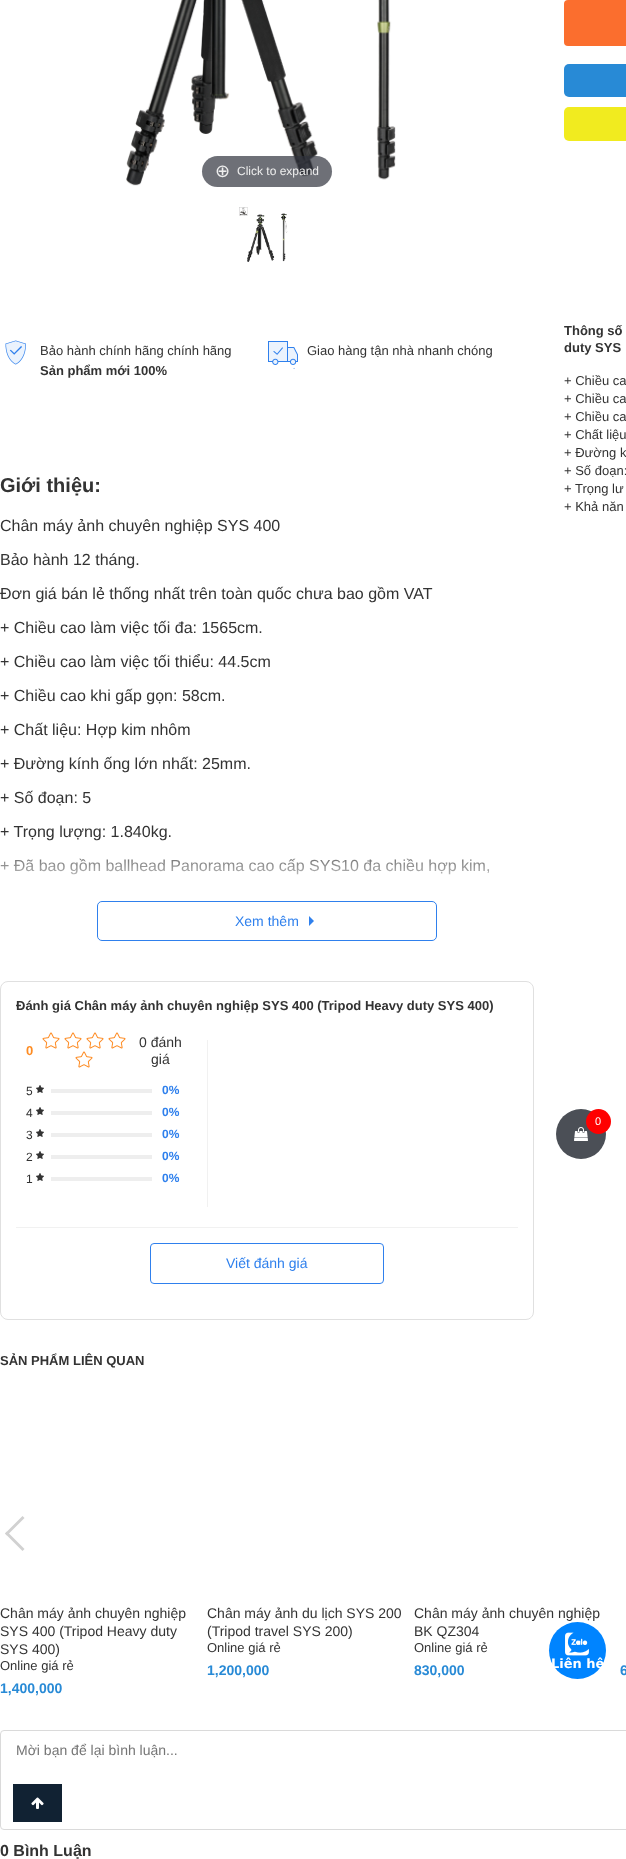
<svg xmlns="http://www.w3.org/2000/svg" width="626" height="1859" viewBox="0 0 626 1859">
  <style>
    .t1 { font: 18px DejaVu Sans; fill: #eee; }
    .t2 { font: 12px Liberation Sans; fill: #eee; }
    .t3 { font: 13px Liberation Sans; fill: #333; }
    .t4 { font: bold 13px Liberation Sans; fill: #333; }
    .t5 { font: bold 20px Liberation Sans; fill: #333; }
    .t6 { font: 16px Liberation Sans; fill: #333; }
    .t7 { font: 14px Liberation Sans; fill: #2f80ed; }
    .t8 { font: bold 13px Liberation Sans; fill: #fe8c23; }
    .t9 { font: 14px Liberation Sans; fill: #333; }
    .t10 { font: 12px Liberation Sans; fill: #333; }
    .t11 { font: bold 12px Liberation Sans; fill: #2f80ed; }
    .t12 { font: bold 14px Liberation Sans; fill: #288ad6; }
    .t13 { font: 14px Liberation Sans; fill: #757575; }
    .t14 { font: bold 16px Liberation Sans; fill: #333; }
    .t15 { font: 11px Liberation Sans; fill: #fff; }
    .t16 { font: bold 13px DejaVu Sans; fill: #fff; }
  </style>
  <defs>
    <linearGradient id="g1" gradientUnits="userSpaceOnUse" x1="267" y1="841" x2="267" y2="946"><stop offset="0" stop-color="#fff" stop-opacity="0"/><stop offset="0.5" stop-color="#fff"/><stop offset="1" stop-color="#fff"/></linearGradient>
  </defs>
  <rect width="100%" height="100%" fill="#fff"/>
  <image x="126" y="0" width="270" height="186" href="images/1.png"/>
  <rect x="202" y="156" width="130" height="31" rx="15.5" fill="#31333db3"/>
  <text x="215" y="177" class="t1">⊕</text>
  <text x="237" y="175" class="t2">Click to expand</text>
  <image x="239" y="207" width="49" height="55" href="images/2.png"/>
  <image x="5" y="340" width="21" height="25" href="images/3.png"/>
  <text x="40" y="355" class="t3">Bảo hành chính hãng chính hãng</text>
  <text x="40" y="375" class="t4">Sản phẩm mới 100%</text>
  <image x="268" y="341" width="30" height="28" href="images/4.png"/>
  <text x="307" y="355" class="t3">Giao hàng tận nhà nhanh chóng</text>
  <text x="0" y="492" class="t5">Giới thiệu:</text>
  <text x="0" y="531" class="t6">Chân máy ảnh chuyên nghiệp SYS 400</text>
  <text x="0" y="565" class="t6">Bảo hành 12 tháng.</text>
  <text x="0" y="599" class="t6">Đơn giá bán lẻ thống nhất trên toàn quốc chưa bao gồm VAT</text>
  <text x="0" y="633" class="t6">+ Chiều cao làm việc tối đa: 1565cm.</text>
  <text x="0" y="667" class="t6">+ Chiều cao làm việc tối thiểu: 44.5cm</text>
  <text x="0" y="701" class="t6">+ Chiều cao khi gấp gọn: 58cm.</text>
  <text x="0" y="735" class="t6">+ Chất liệu: Hợp kim nhôm</text>
  <text x="0" y="769" class="t6">+ Đường kính ống lớn nhất: 25mm.</text>
  <text x="0" y="803" class="t6">+ Số đoạn: 5</text>
  <text x="0" y="837" class="t6">+ Trọng lượng: 1.840kg.</text>
  <text x="0" y="871" class="t6">+ Đã bao gồm ballhead Panorama cao cấp SYS10 đa chiều hợp kim,</text>
  <rect x="0" y="858" width="489" height="17" fill="url(#g1)"/>
  <rect x="97.5" y="901.5" width="339" height="39" rx="4.5" fill="none" stroke="#2f80ed"/>
  <text x="235" y="926" class="t7">Xem thêm</text>
  <path d="M309 926V916L314 921Z" fill="#2f80ed"/>
  <rect x="0.5" y="981.5" width="533" height="338" rx="7.5" fill="none" stroke="#e0e0e0"/>
  <rect x="16" y="1227" width="502" height="1" fill="#f1f1f1"/>
  <text x="16" y="1010" class="t4">Đánh giá Chân máy ảnh chuyên nghiệp SYS 400 (Tripod Heavy duty SYS 400)</text>
  <rect x="207" y="1040" width="1" height="167" fill="#f1f1f1"/>
  <text x="26" y="1055" class="t8">0</text>
  <image x="42" y="1032" width="18" height="17" href="images/5.png"/>
  <image x="64" y="1032" width="18" height="17" href="images/5.png"/>
  <image x="86" y="1032" width="18" height="17" href="images/5.png"/>
  <image x="108" y="1032" width="18" height="17" href="images/5.png"/>
  <image x="75" y="1051" width="18" height="17" href="images/5.png"/>
  <text x="139" y="1047" class="t9">0 đánh</text>
  <text x="151" y="1064" class="t9">giá</text>
  <text x="26" y="1095" class="t10">5</text>
  <image x="36" y="1085" width="8" height="8" href="images/6.png"/>
  <rect x="51" y="1089" width="101" height="4" fill="#eee"/>
  <text x="162" y="1094" class="t11">0%</text>
  <text x="26" y="1117" class="t10">4</text>
  <image x="36" y="1107" width="8" height="8" href="images/6.png"/>
  <rect x="51" y="1111" width="101" height="4" fill="#eee"/>
  <text x="162" y="1116" class="t11">0%</text>
  <text x="26" y="1139" class="t10">3</text>
  <image x="36" y="1129" width="8" height="8" href="images/6.png"/>
  <rect x="51" y="1133" width="101" height="4" fill="#eee"/>
  <text x="162" y="1138" class="t11">0%</text>
  <text x="26" y="1161" class="t10">2</text>
  <image x="36" y="1151" width="8" height="8" href="images/6.png"/>
  <rect x="51" y="1155" width="101" height="4" fill="#eee"/>
  <text x="162" y="1160" class="t11">0%</text>
  <text x="26" y="1183" class="t10">1</text>
  <image x="36" y="1173" width="8" height="8" href="images/6.png"/>
  <rect x="51" y="1177" width="101" height="4" fill="#eee"/>
  <text x="162" y="1182" class="t11">0%</text>
  <rect x="150.5" y="1243.5" width="233" height="40" rx="3.5" fill="none" stroke="#2f80ed"/>
  <text x="226" y="1268" class="t7">Viết đánh giá</text>
  <rect x="564" y="0" width="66" height="46" rx="4" fill="#fb6e2e"/>
  <rect x="564" y="64" width="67" height="33" rx="5" fill="#288ad6"/>
  <rect x="564" y="107" width="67" height="34" rx="5" fill="#f1eb1f"/>
  <text x="564" y="335" class="t4">Thông số</text>
  <text x="564" y="352" class="t4">duty SYS</text>
  <text x="564" y="385" class="t3">+ Chiều ca</text>
  <text x="564" y="403" class="t3">+ Chiều ca</text>
  <text x="564" y="421" class="t3">+ Chiều ca</text>
  <text x="564" y="439" class="t3">+ Chất liệu</text>
  <text x="564" y="457" class="t3">+ Đường k</text>
  <text x="564" y="475" class="t3">+ Số đoạn:</text>
  <text x="564" y="493" class="t3">+ Trọng lư</text>
  <text x="564" y="511" class="t3">+ Khả năn</text>
  <text x="0" y="1365" class="t4">SẢN PHẨM LIÊN QUAN</text>
  <path d="M22.5 1551L5 1533.5L7 1531.5L24.5 1549Z" fill="#d1d1d1"/>
  <path d="M7 1535.5L5 1533.5L22.5 1516L24.5 1518Z" fill="#d1d1d1"/>
  <text x="0" y="1618" class="t9">Chân máy ảnh chuyên nghiệp</text>
  <text x="0" y="1636" class="t9">SYS 400 (Tripod Heavy duty</text>
  <text x="0" y="1654" class="t9">SYS 400)</text>
  <text x="0" y="1670" class="t3">Online giá rẻ</text>
  <text x="0" y="1693" class="t12">1,400,000</text>
  <text x="207" y="1618" class="t9">Chân máy ảnh du lịch SYS 200</text>
  <text x="207" y="1636" class="t9">(Tripod travel SYS 200)</text>
  <text x="207" y="1652" class="t3">Online giá rẻ</text>
  <text x="207" y="1675" class="t12">1,200,000</text>
  <text x="414" y="1618" class="t9">Chân máy ảnh chuyên nghiệp</text>
  <text x="414" y="1636" class="t9">BK QZ304</text>
  <text x="414" y="1652" class="t3">Online giá rẻ</text>
  <text x="414" y="1675" class="t12">830,000</text>
  <text x="620" y="1675" class="t12">6</text>
  <rect x="0.5" y="1730.5" width="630" height="99" rx="3.5" fill="none" stroke="#dadada"/>
  <text x="16" y="1755" class="t13">Mời bạn để lại bình luận...</text>
  <text x="0" y="1856" class="t14">0 Bình Luận</text>
  <circle cx="581" cy="1134" r="25" fill="#4b4f56"/>
  <image x="574" y="1127" width="14" height="14" href="images/7.png"/>
  <circle cx="598.5" cy="1121.5" r="12.5" fill="#f00"/>
  <text x="595" y="1125" class="t15">0</text>
  <circle cx="577.5" cy="1650.5" r="28.5" fill="#0084ff"/>
  <image x="565" y="1632" width="24" height="24" href="images/8.png"/>
  <text x="551" y="1668" class="t16">Liên hệ</text>
  <rect x="13" y="1784" width="49" height="38" fill="#123"/>
  <image x="31" y="1797" width="13" height="12" href="images/9.png"/>
</svg>
